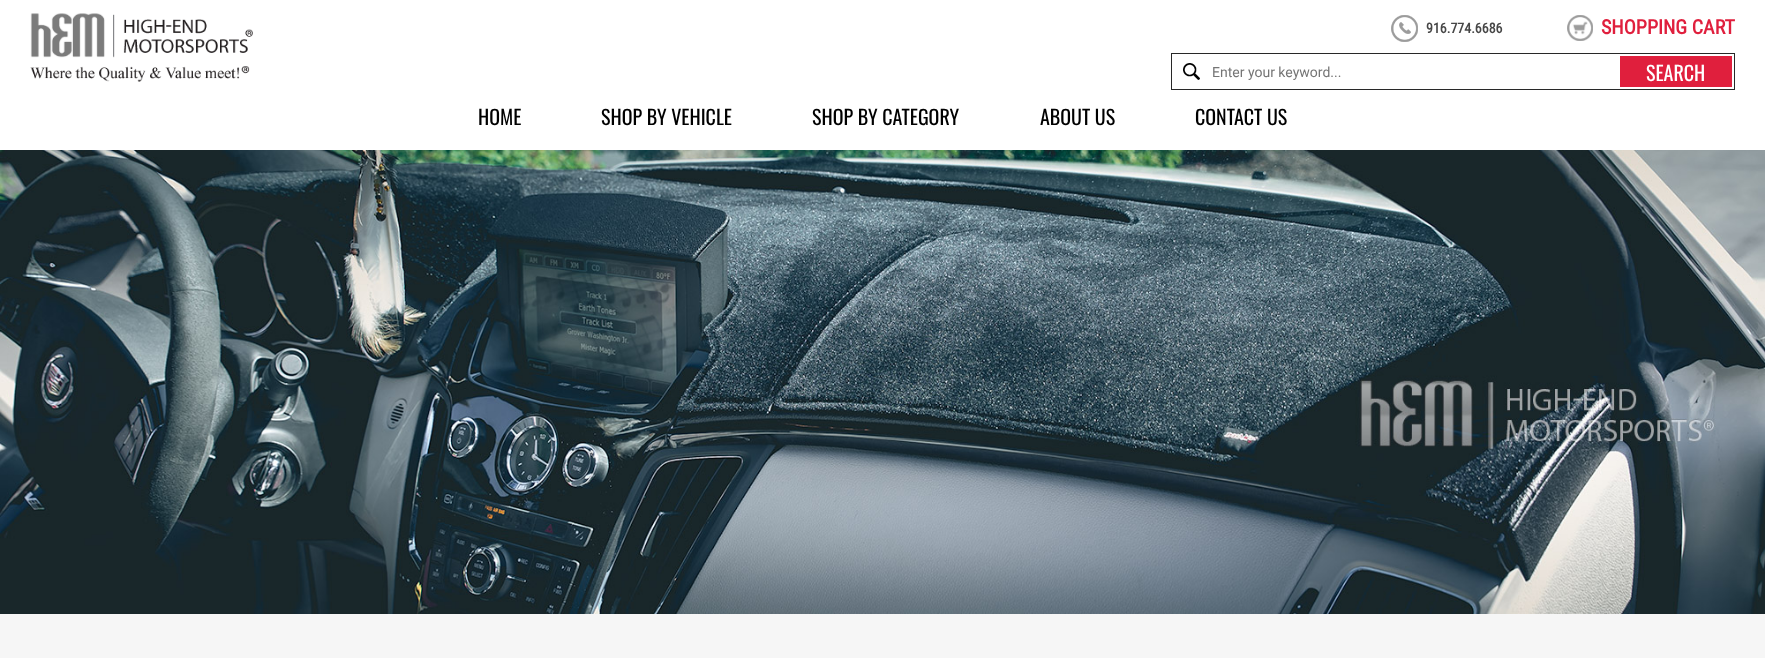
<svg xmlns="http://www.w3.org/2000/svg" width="1765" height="658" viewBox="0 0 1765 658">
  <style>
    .t1 { font: bold 14px Roboto Condensed; fill: #474747; }
    .t2 { font: bold 20px Roboto Condensed; fill: #e01f3d; }
    .t3 { font: 14px Roboto; fill: #757575; }
    .t4 { font: 20px Oswald; fill: #fff; }
    .t5 { font: 20px Oswald; fill: #000; }
  </style>
  <rect width="100%" height="100%" fill="#f6f6f6"/>
  <rect x="0" y="0" width="1765" height="150" fill="#fff"/>
  <image x="30" y="13" width="223" height="69" href="images/1.png"/>
  <image x="1391" y="15" width="27" height="27" href="images/2.png"/>
  <text x="1426" y="33" class="t1">916.774.6686</text>
  <image x="1567" y="15" width="26" height="26" href="images/3.png"/>
  <text x="1601" y="34" class="t2">SHOPPING CART</text>
  <rect x="1171.5" y="53.5" width="563" height="36" fill="none" stroke="#282828"/>
  <image x="1183" y="63" width="17" height="17" href="images/4.png"/>
  <text x="1212" y="77" class="t3">Enter your keyword...</text>
  <rect x="1620" y="56" width="112" height="31" fill="#e01f3d"/>
  <text x="1646" y="81" class="t4">SEARCH</text>
  <text x="478" y="125" class="t5">HOME</text>
  <text x="601" y="125" class="t5">SHOP BY VEHICLE</text>
  <text x="812" y="125" class="t5">SHOP BY CATEGORY</text>
  <text x="1040" y="125" class="t5">ABOUT US</text>
  <text x="1195" y="125" class="t5">CONTACT US</text>
  <image x="0" y="150" width="1765" height="464" href="images/5.png"/>
</svg>
